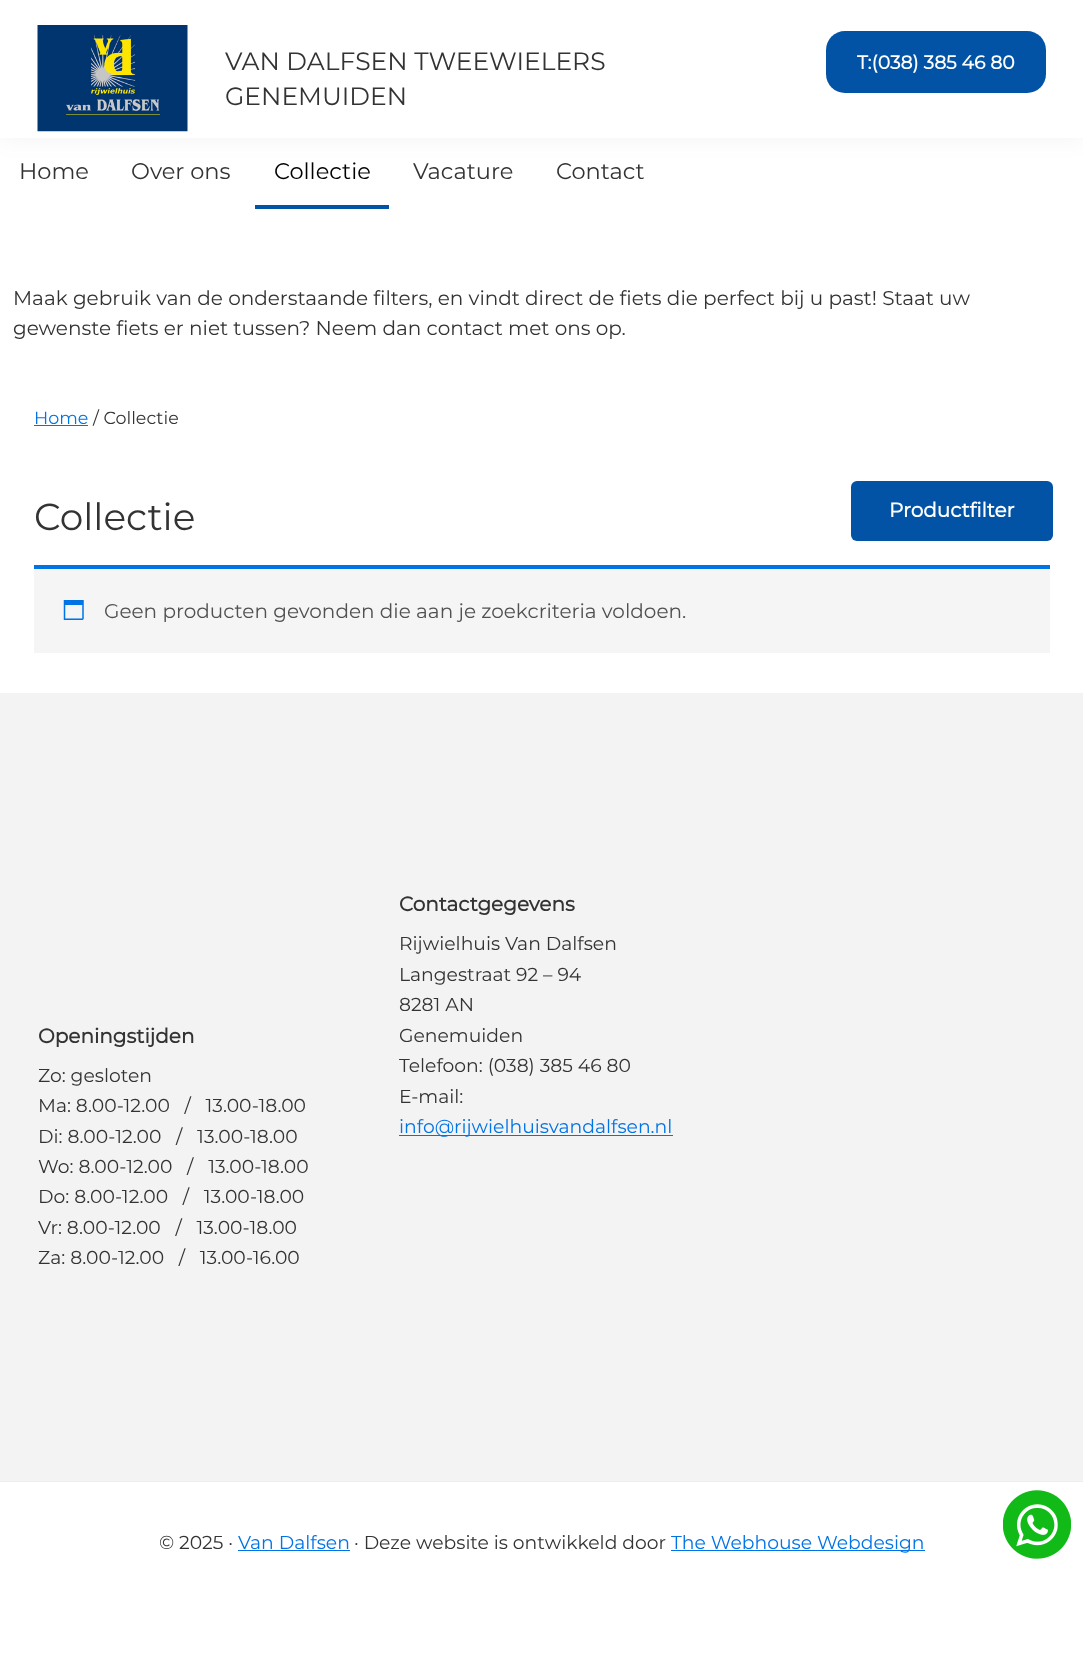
<svg xmlns="http://www.w3.org/2000/svg" width="1083" height="1674" viewBox="0 0 1083 1674">
  <style>
    .t1 { font: 100 25px Montserrat; fill: #333; }
    .t2 { font: bold 18.75px Montserrat; fill: #fff; }
    .t3 { font: 100 22.5px Montserrat; fill: #333; }
    .t4 { font: 100 22.5px Montserrat; fill: #000; }
    .t5 { font: 100 20px Montserrat; fill: #333; }
    .t6 { font: bold 20px Montserrat; fill: #fff; }
    .t7 { font: 100 17.5px Montserrat; fill: #0073e5; }
    .t8 { font: 100 17.5px Montserrat; fill: #333; }
    .t9 { font: 100 37.5px Montserrat; fill: #333; }
    .t10 { font: 100 20px Montserrat; fill: #515151; }
    .t11 { font: bold 20px Montserrat; fill: #333; }
    .t12 { font: 100 18.75px Montserrat; fill: #333; }
    .t13 { font: 100 18.75px Montserrat; fill: #0073e5; }
  </style>
  <rect width="100%" height="100%" fill="#fff"/>
  <rect x="0" y="0" width="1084" height="138" fill="#0000000d" filter="blur(12.5px)"/>
  <rect x="0" y="0" width="1083" height="138" fill="#fff"/>
  <image x="37" y="25" width="151" height="107" href="images/1.png"/>
  <text x="225" y="70" class="t1">VAN DALFSEN TWEEWIELERS</text>
  <text x="225" y="105" class="t1">GENEMUIDEN</text>
  <rect x="826" y="31" width="220" height="62" rx="19" fill="#0253a5"/>
  <text x="857" y="69" class="t2">T:(038) 385 46 80</text>
  <text x="19" y="179" class="t3">Home</text>
  <text x="131" y="179" class="t3">Over ons</text>
  <rect x="255" y="205" width="134" height="4" fill="#0253a5"/>
  <text x="274" y="179" class="t4">Collectie</text>
  <text x="413" y="179" class="t3">Vacature</text>
  <text x="556" y="179" class="t3">Contact</text>
  <text x="13" y="305" class="t5">Maak gebruik van de onderstaande filters, en vindt direct de fiets die perfect bij u past! Staat uw</text>
  <text x="13" y="335" class="t5">gewenste fiets er niet tussen? Neem dan contact met ons op.</text>
  <rect x="851" y="481" width="202" height="60" rx="6" fill="#0253a5"/>
  <text x="889" y="517" class="t6">Productfilter</text>
  <text x="34" y="424" class="t7">Home</text>
  <rect x="34" y="425" width="54" height="1" fill="#0073e5"/>
  <text x="93" y="424" class="t8">/ Collectie</text>
  <text x="34" y="530" class="t9">Collectie</text>
  <rect x="34" y="569" width="1016" height="84" fill="#f5f5f5"/>
  <rect x="34" y="565" width="1016" height="4" fill="#0073e5"/>
  <image x="63" y="600" width="21" height="20" href="images/2.png"/>
  <text x="104" y="618" class="t10">Geen producten gevonden die aan je zoekcriteria voldoen.</text>
  <rect x="0" y="693" width="1083" height="788" fill="#f3f3f3"/>
  <text x="38" y="1043" class="t11">Openingstijden</text>
  <text x="38" y="1082" class="t12">Zo: gesloten</text>
  <text x="38" y="1112" class="t12" xml:space="preserve">Ma: 8.00-12.00   /   13.00-18.00</text>
  <text x="38" y="1143" class="t12" xml:space="preserve">Di: 8.00-12.00   /   13.00-18.00</text>
  <text x="38" y="1173" class="t12" xml:space="preserve">Wo: 8.00-12.00   /   13.00-18.00</text>
  <text x="38" y="1203" class="t12" xml:space="preserve">Do: 8.00-12.00   /   13.00-18.00</text>
  <text x="38" y="1234" class="t12" xml:space="preserve">Vr: 8.00-12.00   /   13.00-18.00</text>
  <text x="38" y="1264" class="t12" xml:space="preserve">Za: 8.00-12.00   /   13.00-16.00</text>
  <text x="399" y="911" class="t11">Contactgegevens</text>
  <text x="399" y="950" class="t12">Rijwielhuis Van Dalfsen</text>
  <text x="399" y="981" class="t12">Langestraat 92 – 94</text>
  <text x="399" y="1011" class="t12">8281 AN</text>
  <text x="399" y="1042" class="t12">Genemuiden</text>
  <text x="399" y="1072" class="t12">Telefoon: (038) 385 46 80</text>
  <text x="399" y="1103" class="t12">E-mail:</text>
  <rect x="399" y="1135" width="274" height="1" fill="#0073e5"/>
  <text x="399" y="1133" class="t13">info@rijwielhuisvandalfsen.nl</text>
  <rect x="0" y="1481" width="1083" height="1" fill="#eee"/>
  <text x="159" y="1549" class="t12">© 2025 ·</text>
  <text x="238" y="1549" class="t13">Van Dalfsen</text>
  <rect x="238" y="1550" width="112" height="1" fill="#0073e5"/>
  <text x="354" y="1549" class="t12">· Deze website is ontwikkeld door</text>
  <rect x="671" y="1550" width="254" height="1" fill="#0073e5"/>
  <text x="671" y="1549" class="t13">The Webhouse Webdesign</text>
  <image x="1003" y="1490" width="68" height="69" href="images/3.png"/>
</svg>
